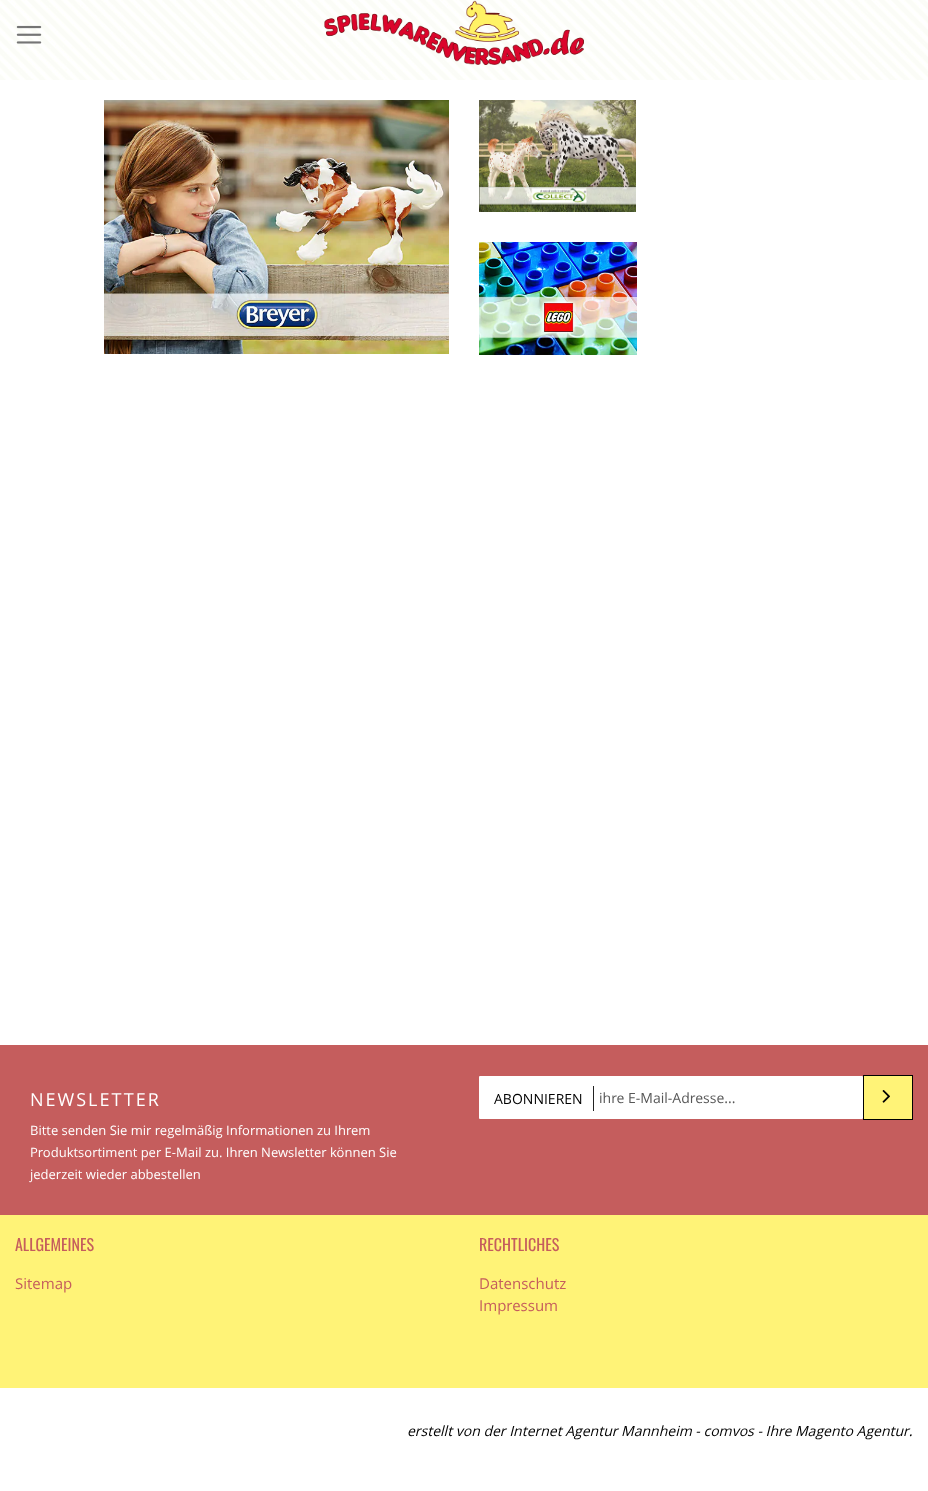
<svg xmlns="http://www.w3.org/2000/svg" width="928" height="1491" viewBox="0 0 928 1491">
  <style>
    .t1 { font: 18px Open Sans; letter-spacing: 2px; fill: #fff; }
    .t2 { font: 14px Open Sans; fill: #000; }
    .t3 { font: 14px Open Sans; fill: #575757; }
    .t4 { font: 13px Open Sans; fill: #fff; }
    .t5 { font: 16px Oswald; fill: #c55d5d; }
    .t6 { font: 15px Open Sans; fill: #c55d5d; }
    .t7 { font: italic 14px Open Sans; fill: #000; }
  </style>
  <rect width="100%" height="100%" fill="#fff"/>
  <image x="0" y="0" width="928" height="80" href="images/1.png"/>
  <image x="16" y="25" width="26" height="19" href="images/2.png"/>
  <image x="324" y="0" width="260" height="65" href="images/3.png"/>
  <image x="104" y="100" width="345" height="254" href="images/4.png"/>
  <image x="479" y="100" width="157" height="112" href="images/5.png"/>
  <image x="479" y="242" width="158" height="113" href="images/6.png"/>
  <rect x="0" y="1215" width="928" height="173" fill="#fff377"/>
  <rect x="0" y="1045" width="928" height="170" fill="#c55d5d"/>
  <text x="30" y="1106" class="t1">NEWSLETTER</text>
  <rect x="479" y="1076" width="384" height="43" rx="1" fill="#fff"/>
  <rect x="593" y="1086" width="1" height="25" fill="#222"/>
  <text x="494" y="1104" class="t2">ABONNIEREN</text>
  <text x="599" y="1103" class="t3">ihre E-Mail-Adresse...</text>
  <rect x="863.5" y="1075.5" width="49" height="44" fill="#fff377" stroke="#000"/>
  <image x="882" y="1090" width="8" height="13" href="images/7.png"/>
  <text x="30" y="1135" class="t4">Bitte senden Sie mir regelmäßig Informationen zu Ihrem</text>
  <text x="30" y="1157" class="t4">Produktsortiment per E-Mail zu. Ihren Newsletter können Sie</text>
  <text x="30" y="1179" class="t4">jederzeit wieder abbestellen</text>
  <text x="15" y="1251" class="t5">ALLGEMEINES</text>
  <text x="15" y="1289" class="t6">Sitemap</text>
  <text x="479" y="1251" class="t5">RECHTLICHES</text>
  <text x="479" y="1289" class="t6">Datenschutz</text>
  <text x="479" y="1311" class="t6">Impressum</text>
  <text x="407" y="1436" class="t7">erstellt von der Internet Agentur Mannheim - comvos - Ihre Magento Agentur.</text>
</svg>
